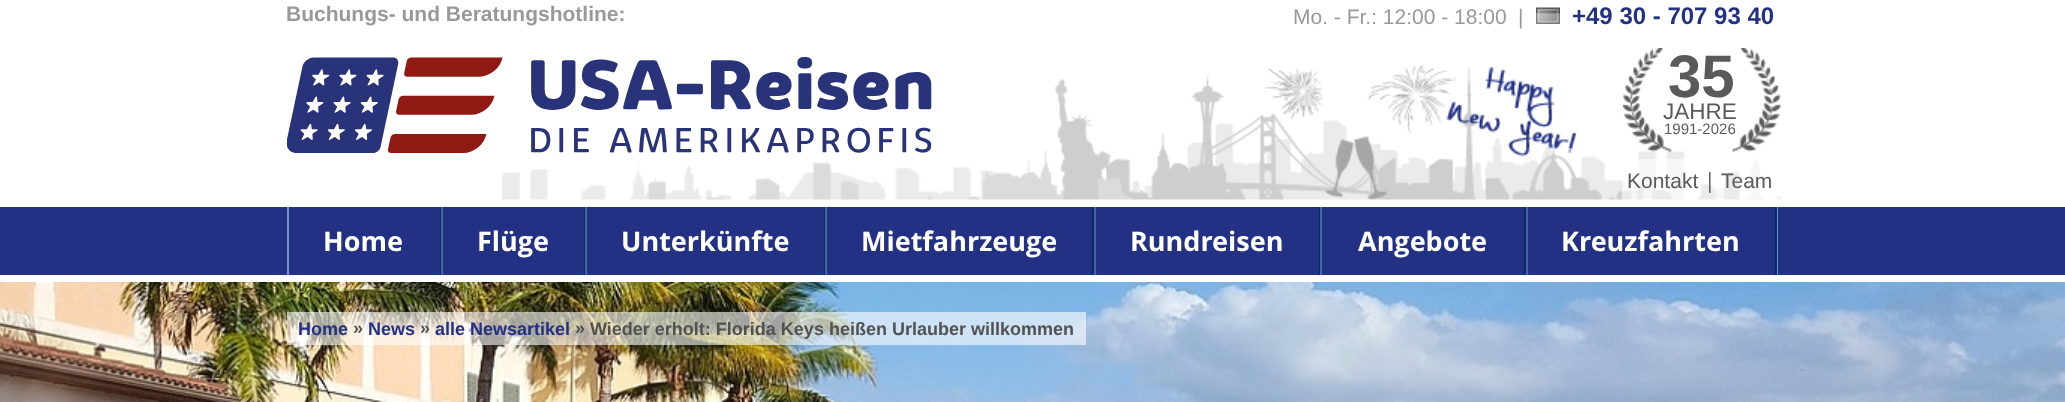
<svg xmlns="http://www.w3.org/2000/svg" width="2065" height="402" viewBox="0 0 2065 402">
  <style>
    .t1 { font: bold 21px Liberation Sans; fill: #999; }
    .t2 { font: 21px Liberation Sans; fill: #999; }
    .t3 { font: bold 24px Liberation Sans; fill: #233184; }
    .t4 { font: bold 60px Liberation Sans; fill: #5a5a5b; }
    .t5 { font: 22.5px Liberation Sans; fill: #5a5a5b; }
    .t6 { font: 15px Liberation Sans; fill: #5a5a5b; }
    .t7 { font: 21px Liberation Sans; fill: #5a5a5b; }
    .t8 { font: 21px Open Sans; fill: #5a5a5b; }
    .t9 { font: bold 27px Open Sans; fill: #fff; }
    .t10 { font: bold 18px Liberation Sans; fill: #233184; }
    .t11 { font: bold 18px Liberation Sans; fill: #525252; }
  </style>
  <rect width="100%" height="100%" fill="#fff"/>
  <text x="286" y="21" class="t1">Buchungs- und Beratungshotline:</text>
  <text x="1293" y="24" class="t2">Mo. - Fr.: 12:00 - 18:00</text>
  <text x="1518" y="24" class="t2">|</text>
  <image x="1536" y="7" width="24" height="17" href="images/1.png"/>
  <text x="1572" y="24" class="t3">+49 30 - 707 93 40</text>
  <image x="501" y="66" width="1280" height="134" href="images/2.png"/>
  <image x="287" y="57" width="645" height="96" href="images/3.png"/>
  <image x="1623" y="48" width="158" height="104" href="images/4.png"/>
  <text x="1668" y="97" class="t4">35</text>
  <text x="1663" y="119" class="t5">JAHRE</text>
  <text x="1664" y="134" class="t6">1991-2026</text>
  <rect x="1622" y="159" width="157" height="41" fill="#ffffff99"/>
  <text x="1627" y="188" class="t7">Kontakt</text>
  <text x="1704" y="188" class="t8">|</text>
  <text x="1721" y="188" class="t7">Team</text>
  <rect x="0" y="207" width="2065" height="68" fill="#233184"/>
  <rect x="440" y="207" width="1" height="68" fill="#022b68"/>
  <rect x="287" y="207" width="2" height="68" fill="#7491c8"/>
  <text x="323" y="251" class="t9">Home</text>
  <rect x="584" y="207" width="1" height="68" fill="#022b68"/>
  <rect x="441" y="207" width="2" height="68" fill="#4267a3"/>
  <text x="477" y="251" class="t9">Flüge</text>
  <rect x="824" y="207" width="1" height="68" fill="#022b68"/>
  <rect x="585" y="207" width="2" height="68" fill="#4267a3"/>
  <text x="621" y="251" class="t9">Unterkünfte</text>
  <rect x="1092" y="207" width="2" height="68" fill="#022b68"/>
  <rect x="825" y="207" width="2" height="68" fill="#4267a3"/>
  <text x="861" y="251" class="t9">Mietfahrzeuge</text>
  <rect x="1319" y="207" width="1" height="68" fill="#022b68"/>
  <rect x="1094" y="207" width="2" height="68" fill="#4267a3"/>
  <text x="1130" y="251" class="t9">Rundreisen</text>
  <rect x="1524" y="207" width="2" height="68" fill="#022b68"/>
  <rect x="1320" y="207" width="2" height="68" fill="#4267a3"/>
  <text x="1358" y="251" class="t9">Angebote</text>
  <rect x="1777" y="207" width="1" height="68" fill="#7491c8"/>
  <rect x="1775" y="207" width="2" height="68" fill="#022b68"/>
  <rect x="1526" y="207" width="2" height="68" fill="#4267a3"/>
  <text x="1561" y="251" class="t9">Kreuzfahrten</text>
  <image x="0" y="282" width="2065" height="120" href="images/5.png"/>
  <rect x="287" y="312" width="799" height="33" fill="#ffffff99"/>
  <text x="298" y="335" class="t10">Home</text>
  <text x="353" y="334" class="t11">»</text>
  <text x="368" y="335" class="t10">News</text>
  <text x="420" y="334" class="t11">»</text>
  <text x="435" y="335" class="t10">alle Newsartikel</text>
  <text x="575" y="334" class="t11">»</text>
  <text x="590" y="335" class="t11">Wieder erholt: Florida Keys heißen Urlauber willkommen</text>
</svg>
